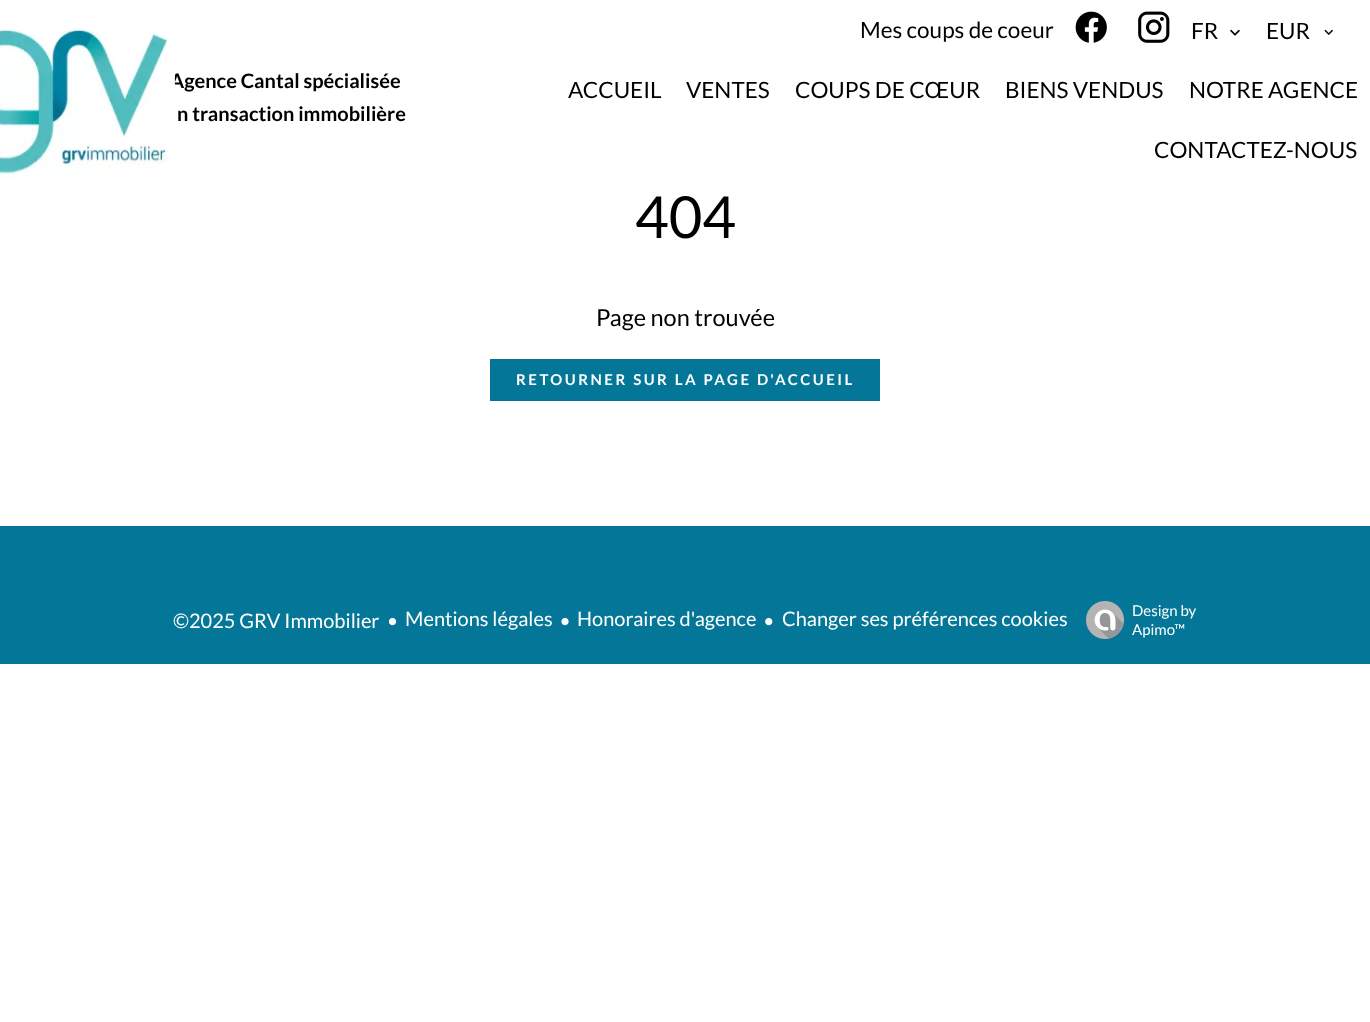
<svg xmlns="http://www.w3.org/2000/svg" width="1370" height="1022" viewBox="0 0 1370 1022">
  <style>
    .t1 { font: bold 20px Lato; fill: #000; }
    .t2 { font: 22.5px Lato; fill: #000; }
    .t3 { font: 58px Lato; fill: #000; }
    .t4 { font: 23.5px Lato; fill: #000; }
    .t5 { font: bold 15px Lato; letter-spacing: 2.5px; fill: #fff; }
    .t6 { font: 20px Lato; fill: #fff; }
    .t7 { font: 15px Lato; fill: #fff; }
  </style>
  <rect width="100%" height="100%" fill="#fff"/>
  <text x="170" y="88" class="t1">Agence Cantal spécialisée</text>
  <image x="0" y="29" width="175" height="150" href="images/1.png"/>
  <text x="177" y="121" class="t1">n transaction immobilière</text>
  <text x="860" y="38" class="t2">Mes coups de coeur</text>
  <image x="1075" y="11" width="32" height="32" href="images/2.png"/>
  <image x="1138" y="11" width="32" height="32" href="images/3.png"/>
  <text x="1191" y="39" class="t2">FR</text>
  <image x="1230" y="29" width="10" height="7" href="images/4.png"/>
  <text x="1266" y="39" class="t2">EUR</text>
  <image x="1324" y="29" width="9" height="6" href="images/5.png"/>
  <text x="568" y="98" class="t2">ACCUEIL</text>
  <text x="686" y="98" class="t2">VENTES</text>
  <text x="795" y="98" class="t2">COUPS DE CŒUR</text>
  <text x="1005" y="98" class="t2">BIENS VENDUS</text>
  <text x="1189" y="98" class="t2">NOTRE AGENCE</text>
  <text x="1154" y="158" class="t2">CONTACTEZ-NOUS</text>
  <text x="635" y="238" class="t3">404</text>
  <text x="596" y="326" class="t4">Page non trouvée</text>
  <rect x="490" y="359" width="390" height="42" fill="#047697"/>
  <text x="516" y="385" class="t5">RETOURNER SUR LA PAGE D'ACCUEIL</text>
  <rect x="0" y="526" width="1370" height="138" fill="#047697"/>
  <text x="173" y="628" class="t6">©2025 GRV Immobilier</text>
  <image x="388" y="617" width="9" height="9" href="images/6.png"/>
  <text x="405" y="626" class="t6">Mentions légales</text>
  <image x="561" y="617" width="8" height="9" href="images/7.png"/>
  <text x="577" y="626" class="t6">Honoraires d'agence</text>
  <image x="765" y="617" width="8" height="9" href="images/8.png"/>
  <text x="782" y="626" class="t6">Changer ses préférences cookies</text>
  <image x="1086" y="601" width="38" height="38" href="images/9.png"/>
  <text x="1132" y="616" class="t7">Design by</text>
  <text x="1132" y="635" class="t7">Apimo™</text>
</svg>
